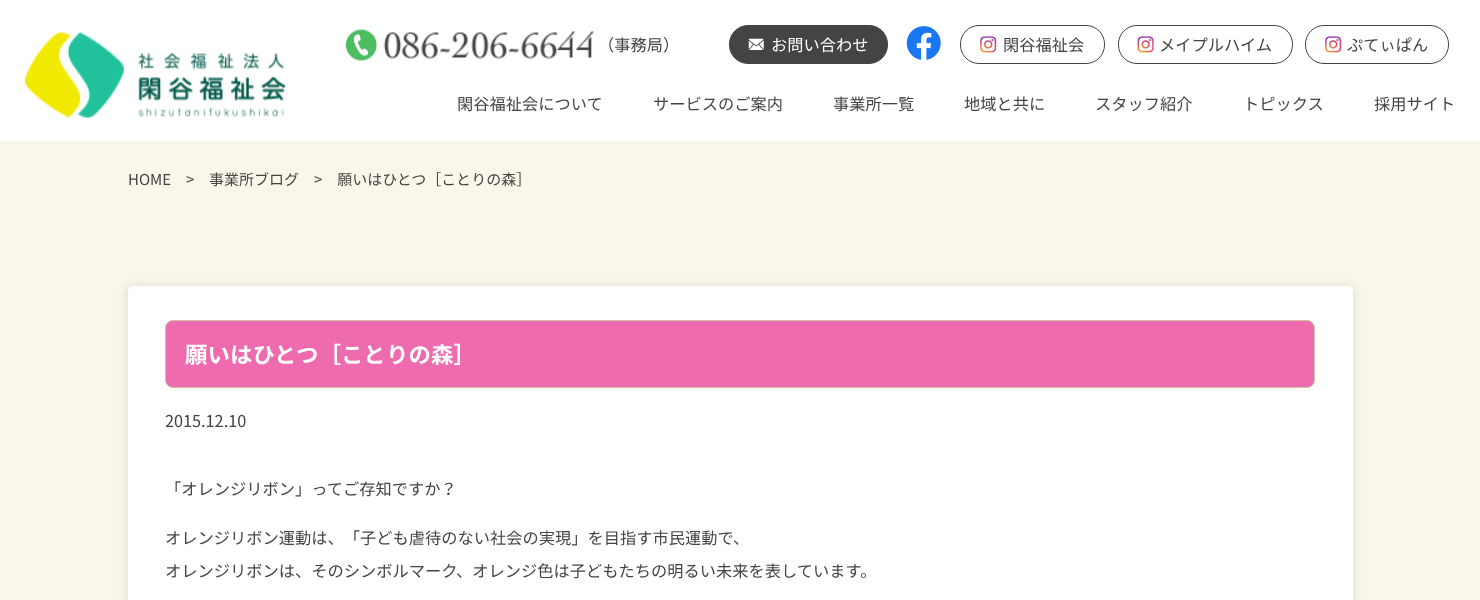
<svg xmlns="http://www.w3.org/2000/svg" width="1480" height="600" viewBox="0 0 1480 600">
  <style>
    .t1 { font: 16.25px Noto Sans JP; fill: #444; }
    .t2 { font: 16.25px Noto Sans JP; fill: #fff; }
    .t3 { font: 15px Noto Sans JP; fill: #444; }
    .t4 { font: bold 22.5px Noto Sans JP; fill: #fff; }
  </style>
  <rect width="100%" height="100%" fill="#faf6e9"/>
  <rect x="0" y="0" width="1480" height="141" fill="#fff"/>
  <image x="25" y="32" width="260" height="86" href="images/1.png"/>
  <image x="345" y="29" width="32" height="32" href="images/2.png"/>
  <image x="383" y="31" width="211" height="28" href="images/3.png"/>
  <text x="598" y="51" class="t1">（事務局）</text>
  <rect x="729.5" y="25.5" width="158" height="38" rx="18.5" fill="#444" stroke="#444"/>
  <image x="748" y="38" width="16" height="12" href="images/4.png"/>
  <text x="771" y="51" class="t2">お問い合わせ</text>
  <image x="906" y="26" width="35" height="34" href="images/5.png"/>
  <rect x="960.5" y="25.5" width="144" height="38" rx="18.5" fill="none" stroke="#444"/>
  <image x="980" y="36" width="17" height="17" href="images/6.png"/>
  <text x="1003" y="51" class="t1">閑谷福祉会</text>
  <rect x="1118.5" y="25.5" width="174" height="38" rx="18.5" fill="none" stroke="#444"/>
  <image x="1137" y="36" width="17" height="17" href="images/7.png"/>
  <text x="1159" y="51" class="t1">メイプルハイム</text>
  <rect x="1305.5" y="25.5" width="143" height="38" rx="18.5" fill="none" stroke="#444"/>
  <image x="1325" y="36" width="17" height="17" href="images/8.png"/>
  <text x="1347" y="51" class="t1">ぷてぃぱん</text>
  <text x="457" y="110" class="t1">閑谷福祉会について</text>
  <text x="653" y="110" class="t1">サービスのご案内</text>
  <text x="833" y="110" class="t1">事業所一覧</text>
  <text x="964" y="110" class="t1">地域と共に</text>
  <text x="1095" y="110" class="t1">スタッフ紹介</text>
  <text x="1243" y="110" class="t1">トピックス</text>
  <text x="1374" y="110" class="t1">採用サイト</text>
  <text x="128" y="185" class="t3">HOME</text>
  <text x="186" y="185" class="t3">&gt;</text>
  <text x="209" y="185" class="t3">事業所ブログ</text>
  <text x="314" y="185" class="t3">&gt;　願いはひとつ［ことりの森］</text>
  <rect x="126" y="285" width="1228" height="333" rx="6" fill="#0000001a" filter="blur(4px)"/>
  <rect x="128" y="286" width="1225" height="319" rx="5" fill="#fff"/>
  <rect x="165.5" y="320.5" width="1149" height="67" rx="7.5" fill="#ef6baf" stroke="#d0bfa2"/>
  <text x="185" y="363" class="t4">願いはひとつ［ことりの森］</text>
  <text x="165" y="427" class="t1">2015.12.10</text>
  <text x="165" y="495" class="t1">「オレンジリボン」ってご存知ですか？</text>
  <text x="165" y="544" class="t1">オレンジリボン運動は、「子ども虐待のない社会の実現」を目指す市民運動で、</text>
  <text x="165" y="577" class="t1">オレンジリボンは、そのシンボルマーク、オレンジ色は子どもたちの明るい未来を表しています。</text>
</svg>
